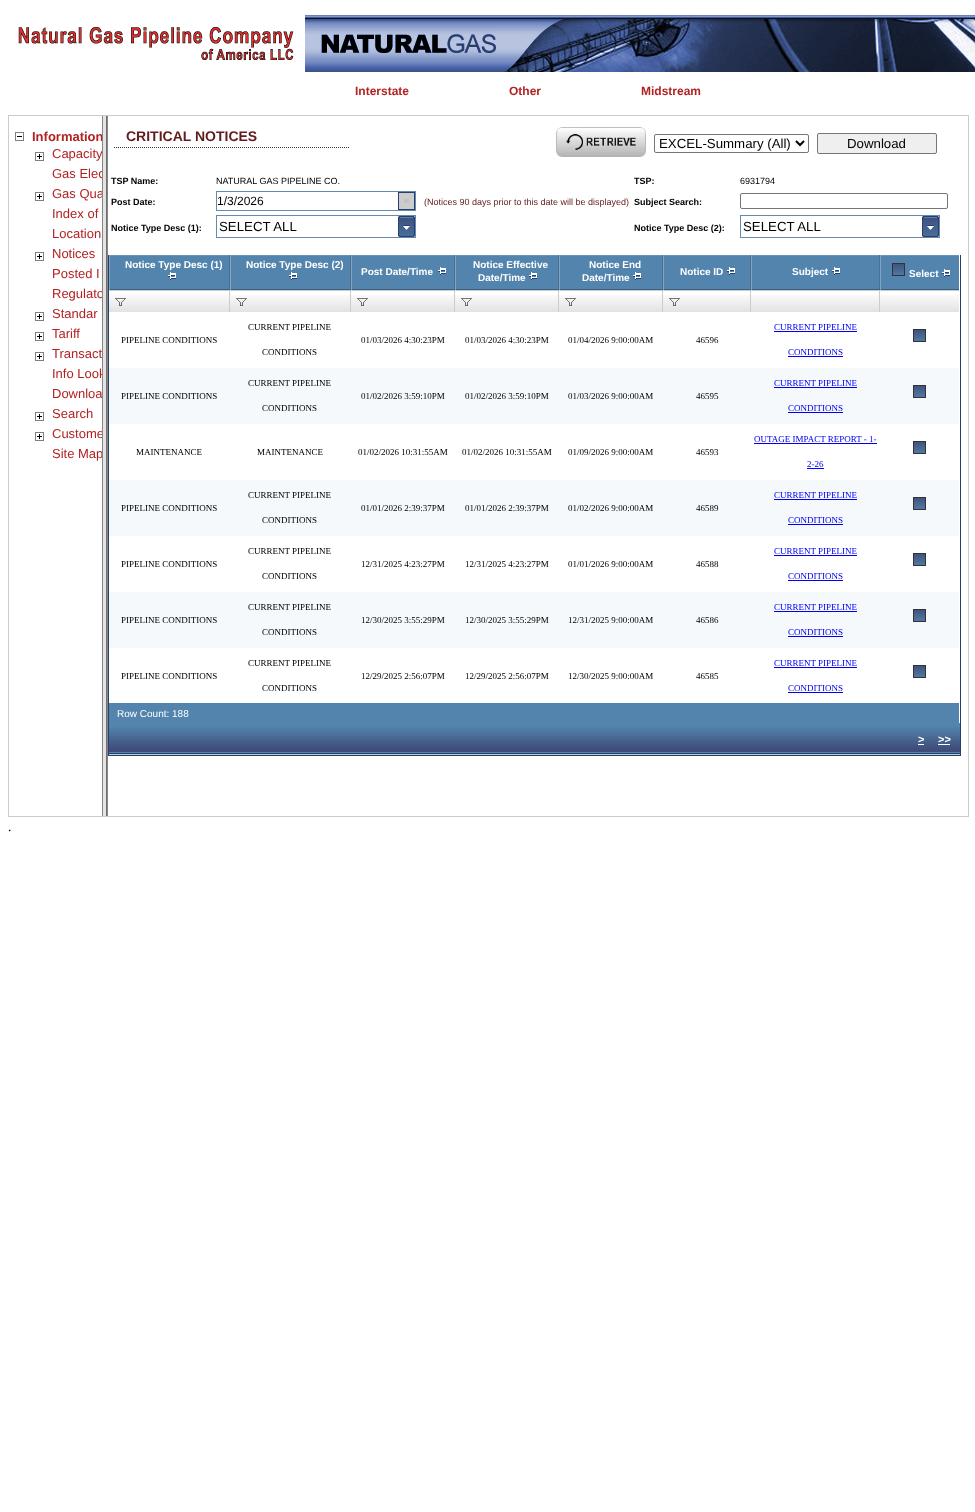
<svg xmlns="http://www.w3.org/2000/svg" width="975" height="1512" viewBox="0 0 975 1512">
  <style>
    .t1 { font: bold 12px Liberation Sans; fill: #b22222; }
    .t2 { font: bold 13px Liberation Sans; fill: #b22222; }
    .t3 { font: 13px Liberation Sans; fill: #b22222; }
    .t4 { font: bold 14px Liberation Sans; fill: #601b1b; }
    .t5 { font: 13.25px Liberation Sans; fill: #000; }
    .t6 { font: bold 9px Liberation Sans; fill: #000; }
    .t7 { font: 9px Liberation Sans; fill: #000; }
    .t8 { font: 12px Liberation Sans; fill: #000; }
    .t9 { font: 9px Liberation Sans; fill: #601b1b; }
    .t10 { font: bold 10px Liberation Sans; fill: #fff; }
    .t11 { font: 9px Liberation Serif; fill: #000; }
    .t12 { font: 9px Liberation Serif; fill: #00e; }
    .t13 { font: 10px Liberation Sans; fill: #fff; }
    .t14 { font: bold 11px Liberation Sans; fill: #fff; }
    .t15 { font: 13.25px Liberation Serif; fill: #000; }
  </style>
  <defs>
    <clipPath id="clip1"><rect x="10" y="117" width="92" height="699"/></clipPath>
  </defs>
  <rect width="100%" height="100%" fill="#fff"/>
  <image x="18" y="27" width="276" height="33" href="images/1.png"/>
  <image x="305" y="15" width="670" height="57" href="images/2.png"/>
  <text x="355" y="95" class="t1">Interstate</text>
  <text x="509" y="95" class="t1">Other</text>
  <text x="641" y="95" class="t1">Midstream</text>
  <rect x="8.5" y="115.5" width="960" height="701" fill="none" stroke="#ccc"/>
  <image x="15" y="132" width="9" height="9" href="images/3.png"/>
  <g clip-path="url(#clip1)">
    <text x="32" y="141" class="t2">Information</text>
  </g>
  <image x="35" y="152" width="9" height="9" href="images/4.png"/>
  <text x="52" y="158" class="t3">Capacity</text>
  <g clip-path="url(#clip1)">
    <text x="52" y="178" class="t3">Gas Elec</text>
  </g>
  <image x="35" y="192" width="9" height="9" href="images/4.png"/>
  <g clip-path="url(#clip1)">
    <text x="52" y="198" class="t3">Gas Qua</text>
  </g>
  <text x="52" y="218" class="t3">Index of</text>
  <text x="52" y="238" class="t3">Location</text>
  <image x="35" y="252" width="9" height="9" href="images/4.png"/>
  <text x="52" y="258" class="t3">Notices</text>
  <text x="52" y="278" class="t3">Posted I</text>
  <g clip-path="url(#clip1)">
    <text x="52" y="298" class="t3">Regulato</text>
  </g>
  <image x="35" y="312" width="9" height="9" href="images/4.png"/>
  <text x="52" y="318" class="t3">Standar</text>
  <image x="35" y="332" width="9" height="9" href="images/4.png"/>
  <text x="52" y="338" class="t3">Tariff</text>
  <image x="35" y="352" width="9" height="9" href="images/4.png"/>
  <text x="52" y="358" class="t3">Transact</text>
  <g clip-path="url(#clip1)">
    <text x="52" y="378" class="t3">Info Look</text>
  </g>
  <text x="52" y="398" class="t3">Downloa</text>
  <image x="35" y="412" width="9" height="9" href="images/4.png"/>
  <text x="52" y="418" class="t3">Search</text>
  <image x="35" y="432" width="9" height="9" href="images/4.png"/>
  <g clip-path="url(#clip1)">
    <text x="52" y="438" class="t3">Custome</text>
    <text x="52" y="458" class="t3">Site Map</text>
  </g>
  <rect x="106" y="116" width="1" height="700" fill="#707070"/>
  <image x="102" y="116" width="6" height="700" href="images/5.png"/>
  <path d="M114 147.5H349" fill="none" stroke="#333" stroke-dasharray="1 1"/>
  <text x="126" y="141" class="t4">CRITICAL NOTICES</text>
  <image x="556" y="127" width="90" height="30" href="images/6.png"/>
  <rect x="654.5" y="134.5" width="154" height="18" rx="1.5" fill="none" stroke="#767676"/>
  <path d="M796 141L800 145L804 141" fill="none" stroke="#000" stroke-width="2"/>
  <text x="659" y="148" class="t5">EXCEL-Summary (All)</text>
  <rect x="817.5" y="133.5" width="119" height="20" rx="1.5" fill="#efefef" stroke="#767676"/>
  <text x="847" y="148" class="t5">Download</text>
  <text x="111" y="184" class="t6">TSP Name:</text>
  <text x="216" y="184" class="t7">NATURAL GAS PIPELINE CO.</text>
  <text x="634" y="184" class="t6">TSP:</text>
  <text x="740" y="184" class="t7">6931794</text>
  <text x="111" y="205" class="t6">Post Date:</text>
  <rect x="216.5" y="191.5" width="199" height="19" fill="none" stroke="#658ab0"/>
  <text x="217" y="205" class="t8">1/3/2026</text>
  <rect x="398.5" y="192.5" width="16" height="17" fill="#ccc" stroke="#24406f"/>
  <rect x="404" y="199" width="5" height="4" fill="#c2c2c3"/>
  <text x="424" y="205" class="t9">(Notices 90 days prior to this date will be displayed)</text>
  <text x="634" y="205" class="t6">Subject Search:</text>
  <rect x="740.5" y="193.5" width="207" height="15" rx="1.5" fill="none" stroke="#767676"/>
  <text x="111" y="231" class="t6">Notice Type Desc (1):</text>
  <rect x="216.5" y="215.5" width="199" height="22" fill="none" stroke="#658ab0"/>
  <text x="219" y="231" class="t5">SELECT ALL</text>
  <image x="398" y="216" width="17" height="21" href="images/7.png"/>
  <text x="634" y="231" class="t6">Notice Type Desc (2):</text>
  <rect x="740.5" y="215.5" width="199" height="22" fill="none" stroke="#658ab0"/>
  <text x="743" y="231" class="t5">SELECT ALL</text>
  <image x="922" y="216" width="17" height="21" href="images/7.png"/>
  <rect x="960" y="255" width="1" height="501" fill="#24406f"/>
  <rect x="108" y="755" width="853" height="1" fill="#24406f"/>
  <rect x="108" y="255" width="1" height="501" fill="#24406f"/>
  <rect x="110" y="256" width="849" height="33" fill="#5284ad"/>
  <rect x="109" y="255" width="850" height="1" fill="#6994b8"/>
  <rect x="229" y="255" width="1" height="35" fill="#477296"/>
  <rect x="109" y="289" width="121" height="1" fill="#3c617f"/>
  <rect x="109" y="255" width="1" height="35" fill="#80a5c3"/>
  <text x="125" y="268" class="t10">Notice Type Desc (1)</text>
  <image x="168" y="272" width="8" height="8" href="images/8.png"/>
  <rect x="350" y="255" width="1" height="35" fill="#477296"/>
  <rect x="230" y="289" width="121" height="1" fill="#3c617f"/>
  <rect x="230" y="255" width="1" height="35" fill="#80a5c3"/>
  <text x="246" y="268" class="t10">Notice Type Desc (2)</text>
  <image x="289" y="272" width="8" height="8" href="images/8.png"/>
  <rect x="454" y="255" width="1" height="35" fill="#477296"/>
  <rect x="351" y="289" width="104" height="1" fill="#3c617f"/>
  <rect x="351" y="255" width="1" height="35" fill="#80a5c3"/>
  <text x="361" y="275" class="t10">Post Date/Time</text>
  <image x="438" y="267" width="8" height="8" href="images/8.png"/>
  <rect x="558" y="255" width="1" height="35" fill="#477296"/>
  <rect x="455" y="289" width="104" height="1" fill="#3c617f"/>
  <rect x="455" y="255" width="1" height="35" fill="#80a5c3"/>
  <text x="473" y="268" class="t10">Notice Effective</text>
  <text x="478" y="281" class="t10">Date/Time</text>
  <image x="529" y="272" width="8" height="8" href="images/8.png"/>
  <rect x="662" y="255" width="1" height="35" fill="#477296"/>
  <rect x="559" y="289" width="104" height="1" fill="#3c617f"/>
  <rect x="559" y="255" width="1" height="35" fill="#80a5c3"/>
  <text x="589" y="268" class="t10">Notice End</text>
  <text x="582" y="281" class="t10">Date/Time</text>
  <image x="633" y="272" width="8" height="8" href="images/8.png"/>
  <rect x="750" y="255" width="1" height="35" fill="#477296"/>
  <rect x="663" y="289" width="88" height="1" fill="#3c617f"/>
  <rect x="663" y="255" width="1" height="35" fill="#80a5c3"/>
  <text x="680" y="275" class="t10">Notice ID</text>
  <image x="727" y="267" width="8" height="8" href="images/8.png"/>
  <rect x="879" y="255" width="1" height="35" fill="#477296"/>
  <rect x="751" y="289" width="208" height="1" fill="#3c617f"/>
  <rect x="751" y="255" width="1" height="35" fill="#80a5c3"/>
  <text x="792" y="275" class="t10">Subject</text>
  <image x="832" y="267" width="8" height="8" href="images/8.png"/>
  <rect x="880" y="255" width="1" height="35" fill="#80a5c3"/>
  <image x="892" y="263" width="13" height="13" href="images/9.png"/>
  <text x="909" y="277" class="t10">Select</text>
  <image x="942" y="269" width="8" height="8" href="images/8.png"/>
  <image x="109" y="291" width="120" height="21" href="images/10.png"/>
  <rect x="109" y="290" width="642" height="1" fill="#ccc"/>
  <rect x="229" y="290" width="1" height="22" fill="#ccc"/>
  <image x="115" y="298" width="11" height="8" href="images/11.png"/>
  <image x="230" y="295" width="120" height="17" href="images/12.png"/>
  <rect x="350" y="290" width="1" height="22" fill="#ccc"/>
  <image x="236" y="298" width="11" height="8" href="images/11.png"/>
  <image x="351" y="295" width="103" height="17" href="images/13.png"/>
  <rect x="454" y="290" width="1" height="22" fill="#ccc"/>
  <image x="357" y="298" width="11" height="8" href="images/11.png"/>
  <image x="455" y="295" width="103" height="17" href="images/13.png"/>
  <rect x="558" y="290" width="1" height="22" fill="#ccc"/>
  <image x="461" y="298" width="11" height="8" href="images/11.png"/>
  <image x="559" y="295" width="103" height="17" href="images/13.png"/>
  <rect x="662" y="290" width="1" height="22" fill="#ccc"/>
  <image x="565" y="298" width="11" height="8" href="images/11.png"/>
  <image x="663" y="295" width="87" height="17" href="images/14.png"/>
  <rect x="750" y="290" width="1" height="22" fill="#ccc"/>
  <image x="669" y="298" width="11" height="8" href="images/11.png"/>
  <image x="751" y="295" width="128" height="17" href="images/15.png"/>
  <rect x="751" y="290" width="208" height="1" fill="#ccc"/>
  <rect x="879" y="290" width="1" height="22" fill="#ccc"/>
  <image x="880" y="295" width="79" height="17" href="images/16.png"/>
  <text x="121" y="343" class="t11">PIPELINE CONDITIONS</text>
  <text x="248" y="330" class="t11">CURRENT PIPELINE</text>
  <text x="262" y="355" class="t11">CONDITIONS</text>
  <text x="361" y="343" class="t11">01/03/2026 4:30:23PM</text>
  <text x="465" y="343" class="t11">01/03/2026 4:30:23PM</text>
  <text x="568" y="343" class="t11">01/04/2026 9:00:00AM</text>
  <text x="696" y="343" class="t11">46596</text>
  <text x="774" y="330" class="t12">CURRENT PIPELINE</text>
  <rect x="774" y="331" width="83" height="1" fill="#00e"/>
  <text x="788" y="355" class="t12">CONDITIONS</text>
  <rect x="788" y="356" width="55" height="1" fill="#00e"/>
  <image x="913" y="329" width="13" height="13" href="images/9.png"/>
  <rect x="109" y="368" width="850" height="56" fill="#f6f9fb"/>
  <text x="121" y="399" class="t11">PIPELINE CONDITIONS</text>
  <text x="248" y="386" class="t11">CURRENT PIPELINE</text>
  <text x="262" y="411" class="t11">CONDITIONS</text>
  <text x="361" y="399" class="t11">01/02/2026 3:59:10PM</text>
  <text x="465" y="399" class="t11">01/02/2026 3:59:10PM</text>
  <text x="568" y="399" class="t11">01/03/2026 9:00:00AM</text>
  <text x="696" y="399" class="t11">46595</text>
  <text x="774" y="386" class="t12">CURRENT PIPELINE</text>
  <rect x="774" y="387" width="83" height="1" fill="#00e"/>
  <text x="788" y="411" class="t12">CONDITIONS</text>
  <rect x="788" y="412" width="55" height="1" fill="#00e"/>
  <image x="913" y="385" width="13" height="13" href="images/9.png"/>
  <text x="136" y="455" class="t11">MAINTENANCE</text>
  <text x="257" y="455" class="t11">MAINTENANCE</text>
  <text x="358" y="455" class="t11">01/02/2026 10:31:55AM</text>
  <text x="462" y="455" class="t11">01/02/2026 10:31:55AM</text>
  <text x="568" y="455" class="t11">01/09/2026 9:00:00AM</text>
  <text x="696" y="455" class="t11">46593</text>
  <text x="754" y="442" class="t12">OUTAGE IMPACT REPORT - 1-</text>
  <rect x="754" y="443" width="123" height="1" fill="#00e"/>
  <text x="807" y="467" class="t12">2-26</text>
  <rect x="807" y="468" width="17" height="1" fill="#00e"/>
  <image x="913" y="441" width="13" height="13" href="images/9.png"/>
  <rect x="109" y="480" width="850" height="56" fill="#f6f9fb"/>
  <text x="121" y="511" class="t11">PIPELINE CONDITIONS</text>
  <text x="248" y="498" class="t11">CURRENT PIPELINE</text>
  <text x="262" y="523" class="t11">CONDITIONS</text>
  <text x="361" y="511" class="t11">01/01/2026 2:39:37PM</text>
  <text x="465" y="511" class="t11">01/01/2026 2:39:37PM</text>
  <text x="568" y="511" class="t11">01/02/2026 9:00:00AM</text>
  <text x="696" y="511" class="t11">46589</text>
  <text x="774" y="498" class="t12">CURRENT PIPELINE</text>
  <rect x="774" y="499" width="83" height="1" fill="#00e"/>
  <text x="788" y="523" class="t12">CONDITIONS</text>
  <rect x="788" y="524" width="55" height="1" fill="#00e"/>
  <image x="913" y="497" width="13" height="13" href="images/9.png"/>
  <text x="121" y="567" class="t11">PIPELINE CONDITIONS</text>
  <text x="248" y="554" class="t11">CURRENT PIPELINE</text>
  <text x="262" y="579" class="t11">CONDITIONS</text>
  <text x="361" y="567" class="t11">12/31/2025 4:23:27PM</text>
  <text x="465" y="567" class="t11">12/31/2025 4:23:27PM</text>
  <text x="568" y="567" class="t11">01/01/2026 9:00:00AM</text>
  <text x="696" y="567" class="t11">46588</text>
  <text x="774" y="554" class="t12">CURRENT PIPELINE</text>
  <rect x="774" y="555" width="83" height="1" fill="#00e"/>
  <text x="788" y="579" class="t12">CONDITIONS</text>
  <rect x="788" y="580" width="55" height="1" fill="#00e"/>
  <image x="913" y="553" width="13" height="13" href="images/9.png"/>
  <rect x="109" y="592" width="850" height="56" fill="#f6f9fb"/>
  <text x="121" y="623" class="t11">PIPELINE CONDITIONS</text>
  <text x="248" y="610" class="t11">CURRENT PIPELINE</text>
  <text x="262" y="635" class="t11">CONDITIONS</text>
  <text x="361" y="623" class="t11">12/30/2025 3:55:29PM</text>
  <text x="465" y="623" class="t11">12/30/2025 3:55:29PM</text>
  <text x="568" y="623" class="t11">12/31/2025 9:00:00AM</text>
  <text x="696" y="623" class="t11">46586</text>
  <text x="774" y="610" class="t12">CURRENT PIPELINE</text>
  <rect x="774" y="611" width="83" height="1" fill="#00e"/>
  <text x="788" y="635" class="t12">CONDITIONS</text>
  <rect x="788" y="636" width="55" height="1" fill="#00e"/>
  <image x="913" y="609" width="13" height="13" href="images/9.png"/>
  <text x="121" y="679" class="t11">PIPELINE CONDITIONS</text>
  <text x="248" y="666" class="t11">CURRENT PIPELINE</text>
  <text x="262" y="691" class="t11">CONDITIONS</text>
  <text x="361" y="679" class="t11">12/29/2025 2:56:07PM</text>
  <text x="465" y="679" class="t11">12/29/2025 2:56:07PM</text>
  <text x="568" y="679" class="t11">12/30/2025 9:00:00AM</text>
  <text x="696" y="679" class="t11">46585</text>
  <text x="774" y="666" class="t12">CURRENT PIPELINE</text>
  <rect x="774" y="667" width="83" height="1" fill="#00e"/>
  <text x="788" y="691" class="t12">CONDITIONS</text>
  <rect x="788" y="692" width="55" height="1" fill="#00e"/>
  <image x="913" y="665" width="13" height="13" href="images/9.png"/>
  <rect x="109" y="703" width="850" height="20" fill="#5284ad"/>
  <text x="117" y="717" class="t13">Row Count: 188</text>
  <image x="109" y="723" width="851" height="32" href="images/17.png"/>
  <text x="918" y="743" class="t14">&gt;</text>
  <rect x="918" y="744" width="6" height="1" fill="#fff"/>
  <text x="938" y="743" class="t14">&gt;&gt;</text>
  <rect x="938" y="744" width="12" height="1" fill="#fff"/>
  <text x="8" y="831" class="t15">.</text>
</svg>
